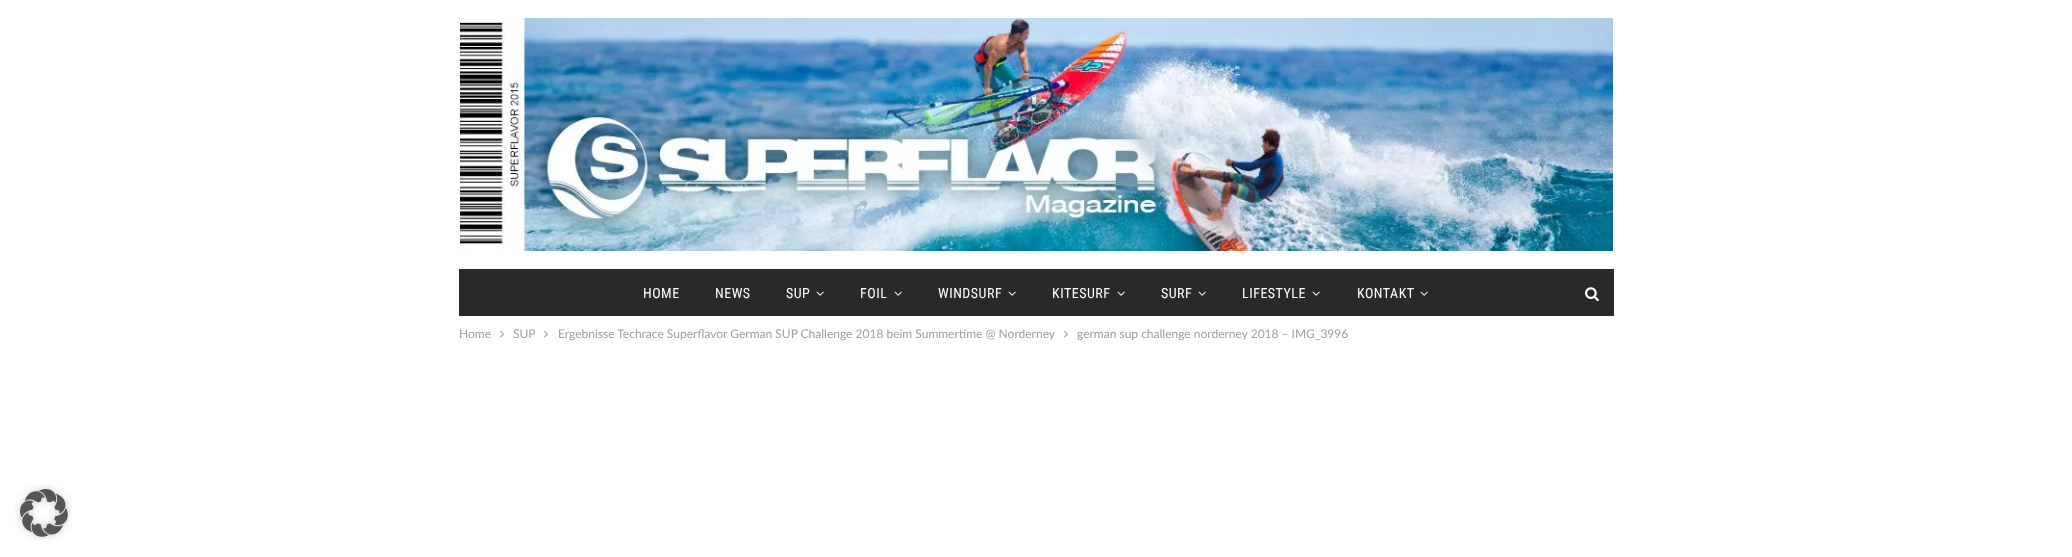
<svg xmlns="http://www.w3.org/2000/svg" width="2072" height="557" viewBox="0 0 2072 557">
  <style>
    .t1 { font: 14px Roboto Condensed; letter-spacing: 0.5px; fill: #fff; }
    .t2 { font: 12px Lato; fill: #9e9e9e; }
  </style>
  <rect width="100%" height="100%" fill="#fff"/>
  <image x="459" y="18" width="1154" height="233" href="images/1.png"/>
  <rect x="459" y="269" width="1155" height="47" fill="#292929"/>
  <text x="643" y="298" class="t1">HOME</text>
  <text x="715" y="298" class="t1">NEWS</text>
  <text x="786" y="298" class="t1">SUP</text>
  <image x="816" y="291" width="8" height="5" href="images/2.png"/>
  <text x="860" y="298" class="t1">FOIL</text>
  <image x="894" y="291" width="8" height="5" href="images/2.png"/>
  <text x="938" y="298" class="t1">WINDSURF</text>
  <image x="1008" y="291" width="8" height="5" href="images/2.png"/>
  <text x="1052" y="298" class="t1">KITESURF</text>
  <image x="1117" y="291" width="8" height="5" href="images/2.png"/>
  <text x="1161" y="298" class="t1">SURF</text>
  <image x="1198" y="291" width="8" height="5" href="images/2.png"/>
  <text x="1242" y="298" class="t1">LIFESTYLE</text>
  <image x="1312" y="291" width="8" height="5" href="images/2.png"/>
  <text x="1357" y="298" class="t1">KONTAKT</text>
  <image x="1420" y="291" width="8" height="5" href="images/2.png"/>
  <image x="1585" y="287" width="14" height="15" href="images/3.png"/>
  <text x="459" y="338" class="t2">Home</text>
  <image x="500" y="330" width="4" height="8" href="images/4.png"/>
  <text x="513" y="338" class="t2">SUP</text>
  <image x="544" y="330" width="4" height="8" href="images/4.png"/>
  <text x="558" y="338" class="t2">Ergebnisse Techrace Superflavor German SUP Challenge 2018 beim Summertime @ Norderney</text>
  <image x="1064" y="330" width="4" height="8" href="images/4.png"/>
  <text x="1077" y="338" class="t2">german sup challenge norderney 2018 – IMG_3996</text>
  <image x="15" y="484" width="57" height="57" href="images/5.png"/>
</svg>
